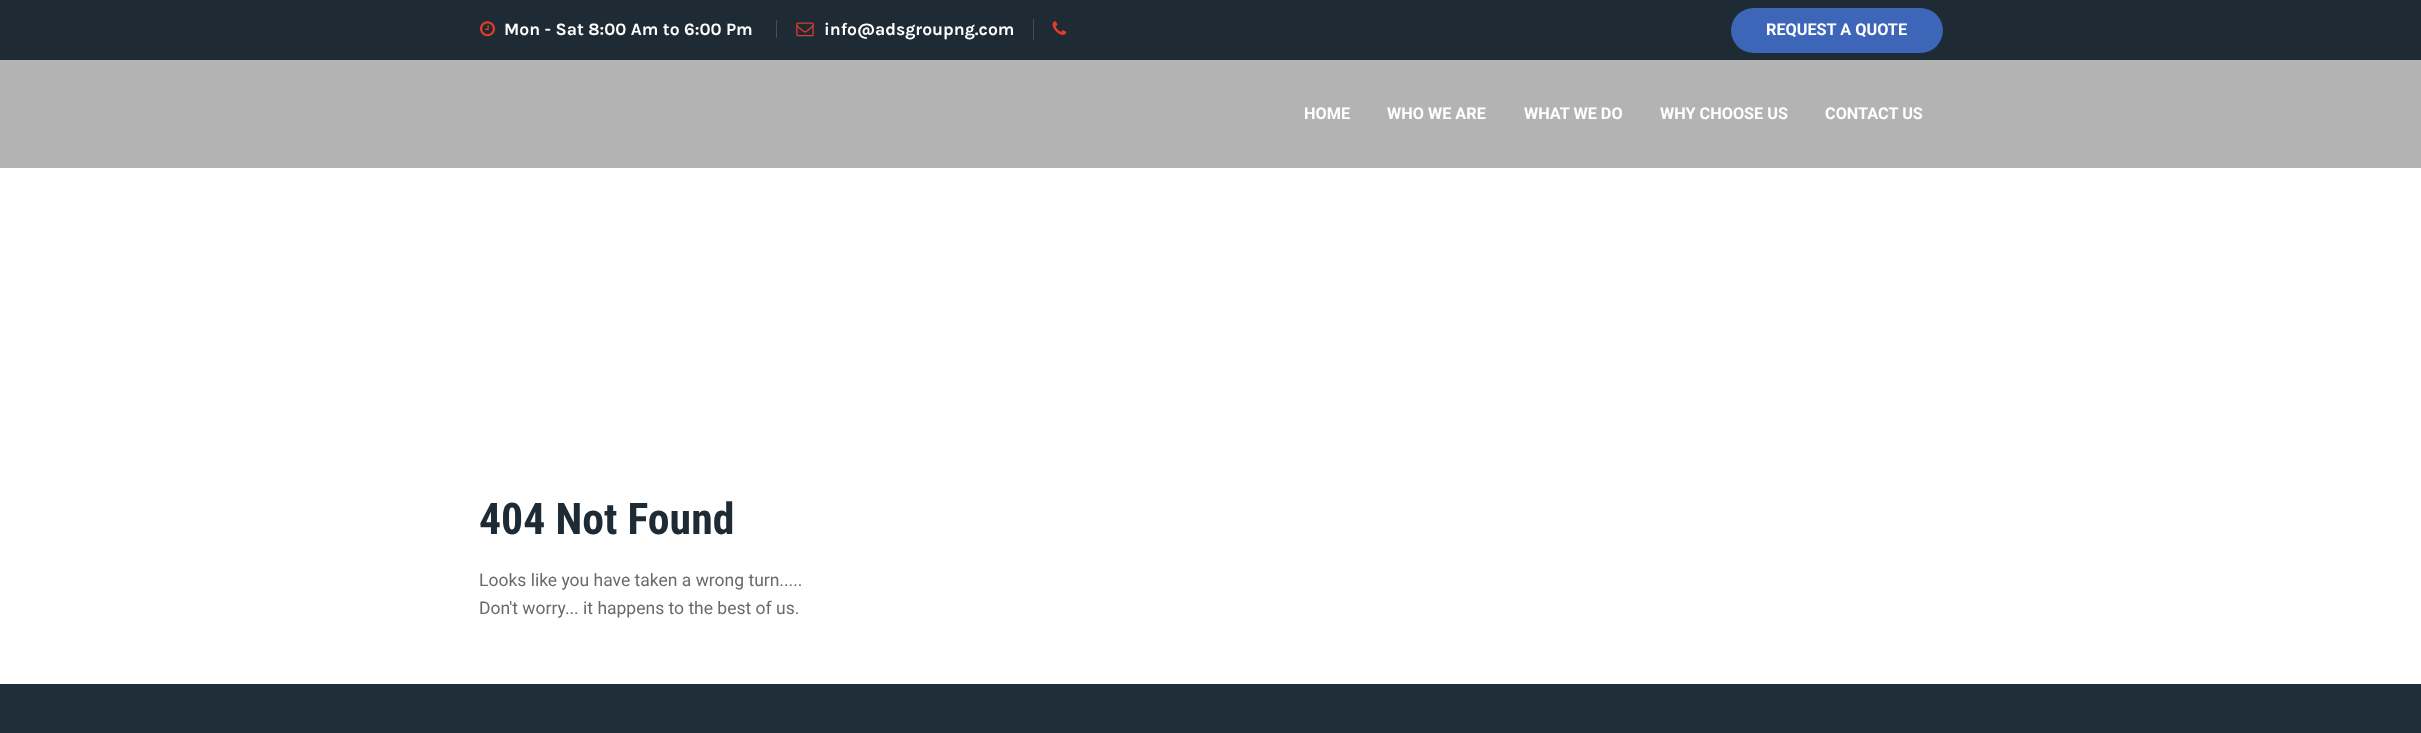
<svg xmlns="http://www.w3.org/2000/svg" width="2421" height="733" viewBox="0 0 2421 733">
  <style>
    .t1 { font: bold 17.5px Karla; fill: #fff; }
    .t2 { font: bold 16.25px Roboto; fill: #fff; }
    .t3 { font: bold 43.75px Roboto Condensed; fill: #1e2a34; }
    .t4 { font: 17.5px Roboto; fill: #6a6a6a; }
  </style>
  <rect width="100%" height="100%" fill="#fff"/>
  <rect x="0" y="0" width="2421" height="60" fill="#1e2a34"/>
  <image x="480" y="21" width="15" height="16" href="images/1.png"/>
  <text x="504" y="35" class="t1">Mon - Sat 8:00 Am to 6:00 Pm</text>
  <rect x="776" y="20" width="1" height="18" fill="#474d52"/>
  <rect x="1033" y="19" width="1" height="21" fill="#474d52"/>
  <image x="796" y="22" width="18" height="15" href="images/2.png"/>
  <text x="824" y="35" class="t1">info@adsgroupng.com</text>
  <image x="1052" y="21" width="15" height="14" href="images/3.png"/>
  <rect x="1731" y="8" width="212" height="45" rx="22.5" fill="#3d65b8"/>
  <text x="1766" y="35" class="t2">REQUEST A QUOTE</text>
  <rect x="0" y="60" width="2421" height="108" fill="#b3b3b3"/>
  <text x="1304" y="119" class="t2">HOME</text>
  <text x="1387" y="119" class="t2">WHO WE ARE</text>
  <text x="1524" y="119" class="t2">WHAT WE DO</text>
  <text x="1660" y="119" class="t2">WHY CHOOSE US</text>
  <text x="1825" y="119" class="t2">CONTACT US</text>
  <text x="479" y="534" class="t3">404 Not Found</text>
  <text x="479" y="586" class="t4">Looks like you have taken a wrong turn.....</text>
  <text x="479" y="614" class="t4">Don't worry... it happens to the best of us.</text>
  <rect x="0" y="684" width="2421" height="49" fill="#1f2e39"/>
</svg>
